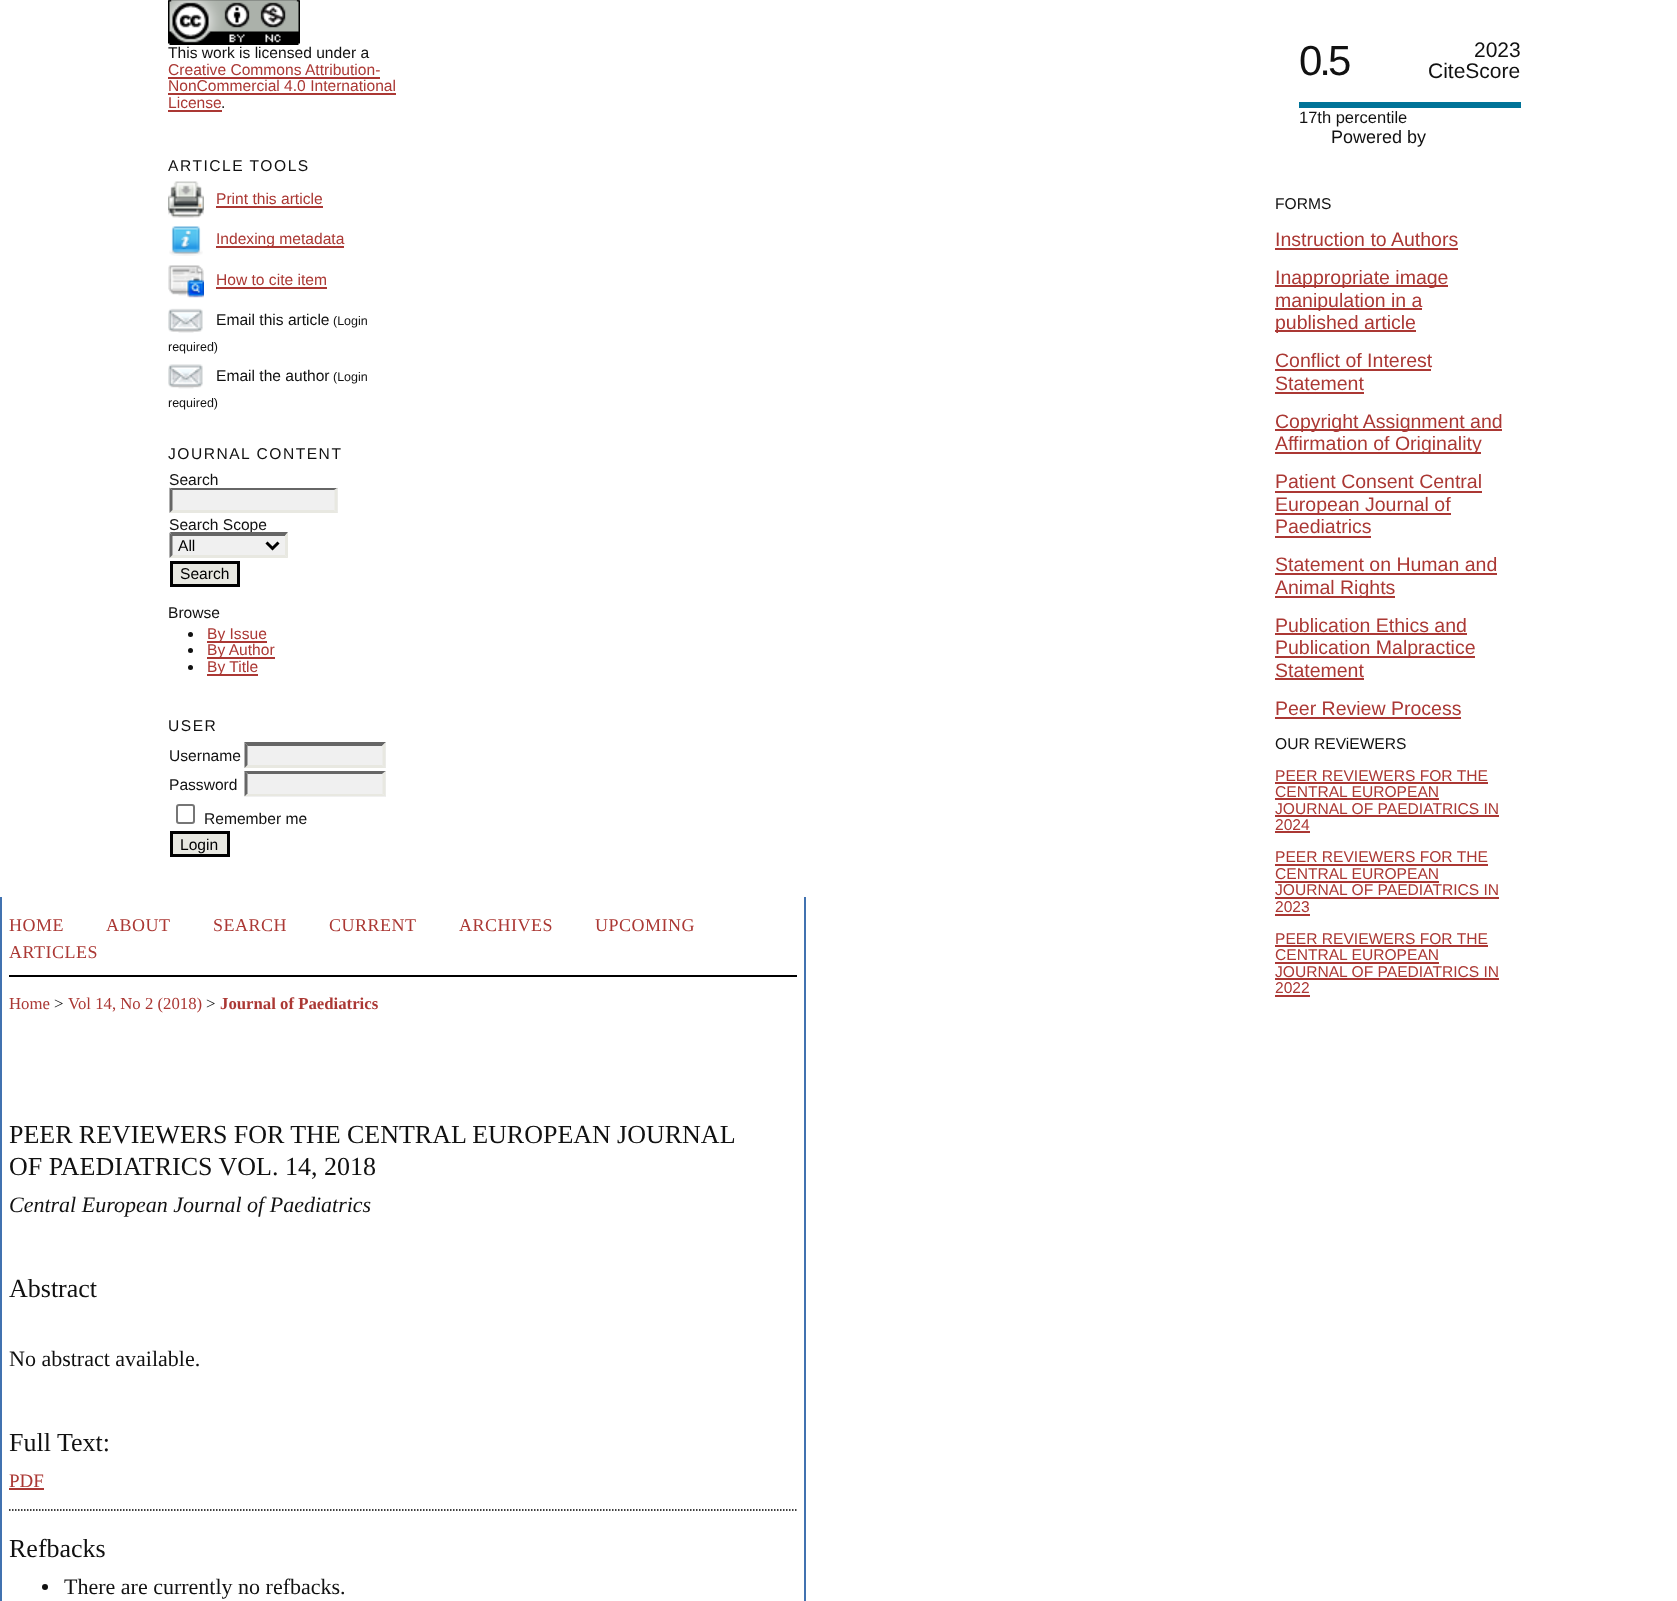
<svg xmlns="http://www.w3.org/2000/svg" width="1677" height="1601" viewBox="0 0 1677 1601">
  <style>
    .t1 { font: 15.6px Liberation Sans; fill: #111; }
    .t2 { font: 15.6px Liberation Sans; fill: #ab3834; }
    .t3 { font: 15.6px Liberation Sans; letter-spacing: 1.5px; fill: #111; }
    .t4 { font: 12.5px Liberation Sans; fill: #111; }
    .t5 { font: 15.6px Liberation Sans; fill: #000; }
    .t6 { font: 42px Liberation Sans; letter-spacing: -3px; fill: #111; }
    .t7 { font: 21px Liberation Sans; fill: #111; }
    .t8 { font: 16.5px Liberation Sans; fill: #111; }
    .t9 { font: 18px Liberation Sans; fill: #111; }
    .t10 { font: 19.5px Liberation Sans; fill: #ab3834; }
    .t11 { font: 18px Liberation Serif; letter-spacing: 0.5px; fill: #ab3834; }
    .t12 { font: 16.75px Liberation Serif; fill: #ab3834; }
    .t13 { font: 16.75px Liberation Serif; fill: #111; }
    .t14 { font: bold 16.75px Liberation Serif; fill: #ab3834; }
    .t15 { font: 26px Liberation Serif; fill: #111; }
    .t16 { font: italic 22px Liberation Serif; fill: #111; }
    .t17 { font: 22px Liberation Serif; fill: #111; }
    .t18 { font: 19px Liberation Serif; fill: #ab3834; }
  </style>
  <rect width="100%" height="100%" fill="#fff"/>
  <image x="168" y="0" width="132" height="45" href="images/1.png"/>
  <text x="168" y="58" class="t1">This work is licensed under a</text>
  <text x="168" y="75" class="t2">Creative Commons Attribution-</text>
  <text x="168" y="91" class="t2">NonCommercial 4.0 International</text>
  <rect x="168" y="77" width="212" height="2" fill="#ab3834"/>
  <rect x="168" y="93" width="228" height="2" fill="#ab3834"/>
  <text x="168" y="108" class="t2">License</text>
  <rect x="168" y="110" width="54" height="2" fill="#ab3834"/>
  <text x="221" y="108" class="t1">.</text>
  <text x="168" y="171" class="t3">ARTICLE TOOLS</text>
  <image x="168" y="181" width="36" height="37" href="images/2.png"/>
  <text x="216" y="204" class="t2">Print this article</text>
  <rect x="216" y="206" width="107" height="2" fill="#ab3834"/>
  <image x="169" y="226" width="34" height="30" href="images/3.png"/>
  <rect x="216" y="246" width="128" height="2" fill="#ab3834"/>
  <text x="216" y="244" class="t2">Indexing metadata</text>
  <image x="168" y="265" width="36" height="33" href="images/4.png"/>
  <text x="216" y="285" class="t2">How to cite item</text>
  <rect x="216" y="287" width="111" height="2" fill="#ab3834"/>
  <image x="168" y="308" width="35" height="25" href="images/5.png"/>
  <text x="216" y="325" class="t1">Email this article</text>
  <text x="333" y="325" class="t4">(Login</text>
  <text x="168" y="351" class="t4">required)</text>
  <image x="168" y="364" width="35" height="25" href="images/6.png"/>
  <text x="216" y="381" class="t1">Email the author</text>
  <text x="333" y="381" class="t4">(Login</text>
  <text x="168" y="407" class="t4">required)</text>
  <text x="168" y="459" class="t3">JOURNAL CONTENT</text>
  <text x="169" y="485" class="t1">Search</text>
  <rect x="170" y="488" width="168" height="25" fill="#f0f0f0"/>
  <path d="M170 488H338L334 490H172Z" fill="#666"/>
  <path d="M337.5 487.5V513L334.5 510V490.5Z" fill="#e8e8e1"/>
  <path d="M338 513H170L172 510H334Z" fill="#e8e8e1"/>
  <path d="M169.5 513V487.5L172.5 490.5V510Z" fill="#666"/>
  <text x="169" y="530" class="t1">Search Scope</text>
  <rect x="170" y="533" width="118" height="25" fill="#f0f0f0"/>
  <path d="M170 532H288L285 536H172Z" fill="#666"/>
  <path d="M288 532.5V558L285 555V535.5Z" fill="#e8e8e1"/>
  <path d="M288 558H170L172 555H285Z" fill="#e8e8e1"/>
  <path d="M169.5 558V532.5L172.5 535.5V555Z" fill="#666"/>
  <path d="M266.5 542.5L272.5 548.5L278.5 542.5" fill="none" stroke="#000" stroke-width="3"/>
  <text x="178" y="551" class="t5">All</text>
  <rect x="171.5" y="562.5" width="67" height="23" fill="#e8e8e1" stroke="#000" stroke-width="3"/>
  <text x="180" y="579" class="t5">Search</text>
  <text x="168" y="618" class="t1">Browse</text>
  <circle cx="190.5" cy="634.5" r="2.5" fill="#111"/>
  <rect x="207" y="641" width="60" height="2" fill="#ab3834"/>
  <text x="207" y="639" class="t2">By Issue</text>
  <circle cx="190.5" cy="650.5" r="2.5" fill="#111"/>
  <rect x="207" y="657" width="68" height="2" fill="#ab3834"/>
  <text x="207" y="655" class="t2">By Author</text>
  <circle cx="190.5" cy="667.5" r="2.5" fill="#111"/>
  <rect x="207" y="674" width="51" height="2" fill="#ab3834"/>
  <text x="207" y="672" class="t2">By Title</text>
  <text x="168" y="731" class="t3">USER</text>
  <text x="169" y="761" class="t1">Username</text>
  <rect x="245" y="743" width="141" height="25" fill="#f0f0f0"/>
  <path d="M244 742H386L382 746H248Z" fill="#666"/>
  <path d="M385.5 742.5V768L382.5 765V745.5Z" fill="#e8e8e1"/>
  <path d="M386 768H244L248 765H382Z" fill="#e8e8e1"/>
  <path d="M244.5 768V742.5L247.5 745.5V765Z" fill="#666"/>
  <text x="169" y="790" class="t1">Password</text>
  <rect x="245" y="771" width="141" height="26" fill="#f0f0f0"/>
  <path d="M244 771H386L382 774H248Z" fill="#666"/>
  <path d="M385.5 771V796.5L382.5 793.5V774Z" fill="#e8e8e1"/>
  <path d="M386 796H244L248 794H382Z" fill="#e8e8e1"/>
  <path d="M244.5 796.5V771L247.5 774V793.5Z" fill="#666"/>
  <rect x="177" y="805" width="17" height="18" rx="2" fill="none" stroke="#767676" stroke-width="2"/>
  <text x="204" y="824" class="t1">Remember me</text>
  <rect x="171.5" y="832.5" width="57" height="23" fill="#e8e8e1" stroke="#000" stroke-width="3"/>
  <text x="180" y="850" class="t5">Login</text>
  <text x="1299" y="75" class="t6">0.5</text>
  <text x="1474" y="57" class="t7">2023</text>
  <text x="1428" y="78" class="t7">CiteScore</text>
  <rect x="1299" y="102" width="222" height="6" fill="#007398"/>
  <text x="1299" y="123" class="t8">17th percentile</text>
  <text x="1331" y="143" class="t9">Powered by</text>
  <text x="1275" y="209" class="t1">FORMS</text>
  <text x="1275" y="246" class="t10">Instruction to Authors</text>
  <rect x="1275" y="248" width="183" height="2" fill="#ab3834"/>
  <rect x="1275" y="285" width="173" height="2" fill="#ab3834"/>
  <text x="1275" y="284" class="t10">Inappropriate image</text>
  <rect x="1275" y="308" width="147" height="2" fill="#ab3834"/>
  <text x="1275" y="307" class="t10">manipulation in a</text>
  <rect x="1275" y="330" width="141" height="2" fill="#ab3834"/>
  <text x="1275" y="329" class="t10">published article</text>
  <text x="1275" y="367" class="t10">Conflict of Interest</text>
  <rect x="1275" y="369" width="156" height="2" fill="#ab3834"/>
  <text x="1275" y="390" class="t10">Statement</text>
  <rect x="1275" y="392" width="89" height="2" fill="#ab3834"/>
  <rect x="1275" y="429" width="227" height="2" fill="#ab3834"/>
  <text x="1275" y="428" class="t10">Copyright Assignment and</text>
  <rect x="1275" y="452" width="206" height="2" fill="#ab3834"/>
  <text x="1275" y="450" class="t10">Affirmation of Originality</text>
  <text x="1275" y="488" class="t10">Patient Consent Central</text>
  <rect x="1275" y="491" width="207" height="2" fill="#ab3834"/>
  <rect x="1275" y="513" width="176" height="2" fill="#ab3834"/>
  <text x="1275" y="511" class="t10">European Journal of</text>
  <text x="1275" y="533" class="t10">Paediatrics</text>
  <rect x="1275" y="536" width="96" height="2" fill="#ab3834"/>
  <text x="1275" y="571" class="t10">Statement on Human and</text>
  <rect x="1275" y="573" width="222" height="2" fill="#ab3834"/>
  <rect x="1275" y="596" width="120" height="2" fill="#ab3834"/>
  <text x="1275" y="594" class="t10">Animal Rights</text>
  <text x="1275" y="632" class="t10">Publication Ethics and</text>
  <rect x="1275" y="633" width="192" height="2" fill="#ab3834"/>
  <rect x="1275" y="656" width="200" height="2" fill="#ab3834"/>
  <text x="1275" y="654" class="t10">Publication Malpractice</text>
  <text x="1275" y="677" class="t10">Statement</text>
  <rect x="1275" y="678" width="89" height="2" fill="#ab3834"/>
  <text x="1275" y="715" class="t10">Peer Review Process</text>
  <rect x="1275" y="717" width="186" height="2" fill="#ab3834"/>
  <text x="1275" y="749" class="t1">OUR REViEWERS</text>
  <text x="1275" y="781" class="t2">PEER REVIEWERS FOR THE</text>
  <rect x="1275" y="782" width="213" height="2" fill="#ab3834"/>
  <text x="1275" y="797" class="t2">CENTRAL EUROPEAN</text>
  <rect x="1275" y="798" width="164" height="2" fill="#ab3834"/>
  <text x="1275" y="814" class="t2">JOURNAL OF PAEDIATRICS IN</text>
  <rect x="1275" y="815" width="224" height="2" fill="#ab3834"/>
  <text x="1275" y="830" class="t2">2024</text>
  <rect x="1275" y="831" width="35" height="2" fill="#ab3834"/>
  <text x="1275" y="862" class="t2">PEER REVIEWERS FOR THE</text>
  <rect x="1275" y="864" width="213" height="2" fill="#ab3834"/>
  <text x="1275" y="879" class="t2">CENTRAL EUROPEAN</text>
  <rect x="1275" y="881" width="164" height="2" fill="#ab3834"/>
  <text x="1275" y="895" class="t2">JOURNAL OF PAEDIATRICS IN</text>
  <rect x="1275" y="897" width="224" height="2" fill="#ab3834"/>
  <text x="1275" y="912" class="t2">2023</text>
  <rect x="1275" y="914" width="35" height="2" fill="#ab3834"/>
  <text x="1275" y="944" class="t2">PEER REVIEWERS FOR THE</text>
  <rect x="1275" y="945" width="213" height="2" fill="#ab3834"/>
  <text x="1275" y="960" class="t2">CENTRAL EUROPEAN</text>
  <rect x="1275" y="962" width="164" height="2" fill="#ab3834"/>
  <text x="1275" y="977" class="t2">JOURNAL OF PAEDIATRICS IN</text>
  <rect x="1275" y="978" width="224" height="2" fill="#ab3834"/>
  <text x="1275" y="993" class="t2">2022</text>
  <rect x="1275" y="995" width="35" height="2" fill="#ab3834"/>
  <rect x="804" y="897" width="2" height="704" fill="#4172b0"/>
  <rect x="0" y="897" width="2" height="704" fill="#4172b0"/>
  <rect x="9" y="975" width="788" height="2" fill="#000"/>
  <text x="9" y="931" class="t11">HOME</text>
  <text x="106" y="931" class="t11">ABOUT</text>
  <text x="213" y="931" class="t11">SEARCH</text>
  <text x="329" y="931" class="t11">CURRENT</text>
  <text x="459" y="931" class="t11">ARCHIVES</text>
  <text x="595" y="931" class="t11">UPCOMING</text>
  <text x="9" y="958" class="t11">ARTICLES</text>
  <text x="9" y="1009" class="t12">Home</text>
  <text x="54" y="1009" class="t13">&gt;</text>
  <text x="68" y="1009" class="t12">Vol 14, No 2 (2018)</text>
  <text x="206" y="1009" class="t13">&gt;</text>
  <text x="220" y="1009" class="t14">Journal of Paediatrics</text>
  <text x="9" y="1143" word-spacing="-0.25" class="t15">PEER REVIEWERS FOR THE CENTRAL EUROPEAN JOURNAL</text>
  <text x="9" y="1175" class="t15">OF PAEDIATRICS VOL. 14, 2018</text>
  <text x="9" y="1212" class="t16">Central European Journal of Paediatrics</text>
  <text x="9" y="1297" class="t15">Abstract</text>
  <text x="9" y="1366" class="t17">No abstract available.</text>
  <text x="9" y="1451" class="t15">Full Text:</text>
  <text x="9" y="1487" class="t18">PDF</text>
  <rect x="9" y="1488" width="35" height="2" fill="#ab3834"/>
  <path d="M9 1510H796.5" fill="none" stroke="#000" stroke-width="1.5" stroke-dasharray="1.5 1.5"/>
  <text x="9" y="1557" class="t15">Refbacks</text>
  <circle cx="45" cy="1587" r="3" fill="#111"/>
  <text x="64" y="1594" class="t17">There are currently no refbacks.</text>
</svg>
